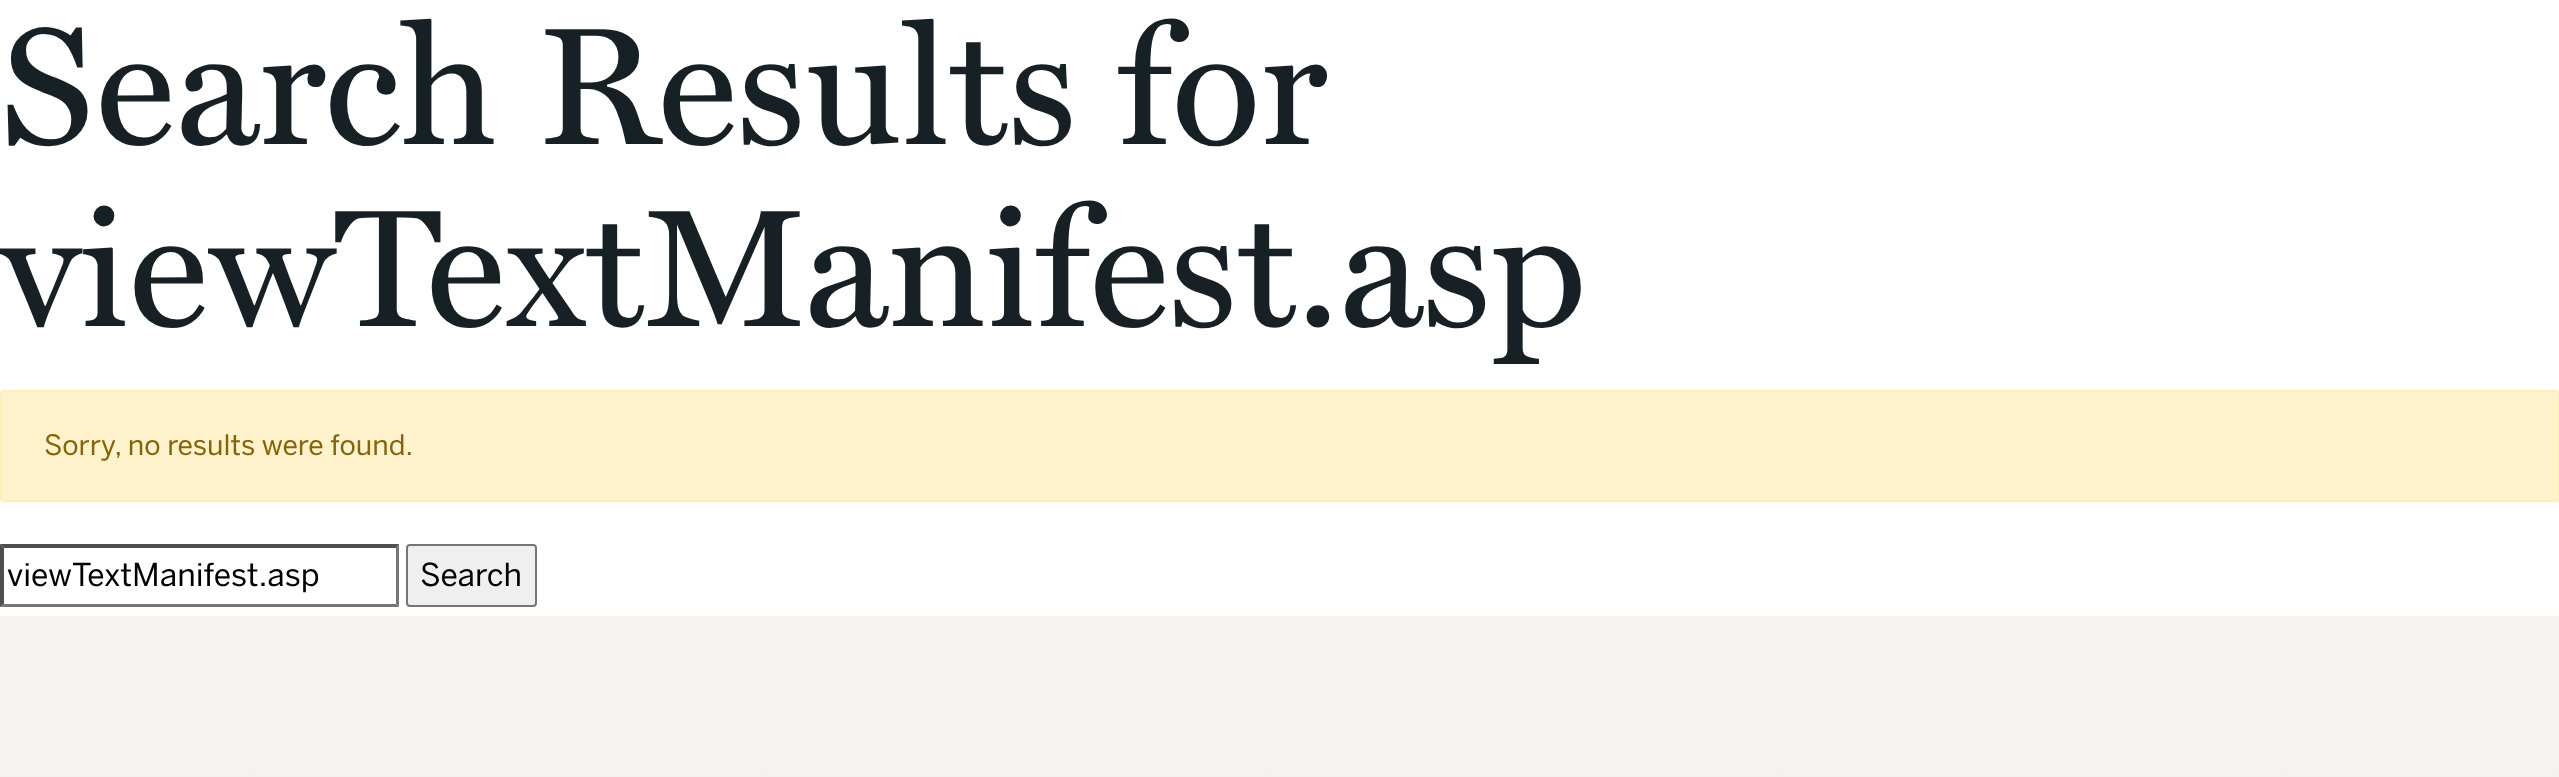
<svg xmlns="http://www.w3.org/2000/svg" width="2559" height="777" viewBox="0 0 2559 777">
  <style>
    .t1 { font: 168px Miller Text; fill: #172025; }
    .t2 { font: 28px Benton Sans; fill: #856404; }
    .t3 { font: 31.5px Benton Sans; fill: #000; }
  </style>
  <defs>
    <linearGradient id="g1" gradientUnits="userSpaceOnUse" x1="1280" y1="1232" x2="1280" y2="616"><stop offset="0" stop-color="#f2eeea"/><stop offset="1" stop-color="#f6f3f1"/></linearGradient>
  </defs>
  <rect width="100%" height="100%" fill="#fff"/>
  <text x="0" y="144" class="t1">Search Results for</text>
  <text x="0" y="326" class="t1">viewTextManifest.asp</text>
  <rect x="1" y="391" width="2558" height="110" rx="3" fill="#fff3cd" stroke="#ffeeba" stroke-width="2"/>
  <text x="44" y="455" class="t2">Sorry, no results were found.</text>
  <path d="M0 544H399L396 548H4Z" fill="#4f4f4f"/>
  <path d="M399 544V607L396 604V548Z" fill="#767676"/>
  <path d="M399 607H0L4 604H396Z" fill="#767676"/>
  <path d="M0 607V544L4 548V604Z" fill="#4f4f4f"/>
  <text x="7" y="586" class="t3">viewTextManifest.asp</text>
  <rect x="407" y="545" width="129" height="61" rx="3" fill="#efefef" stroke="#767676" stroke-width="2"/>
  <text x="420" y="586" class="t3">Search</text>
  <rect x="0" y="616" width="2559" height="161" fill="url(#g1)"/>
</svg>
